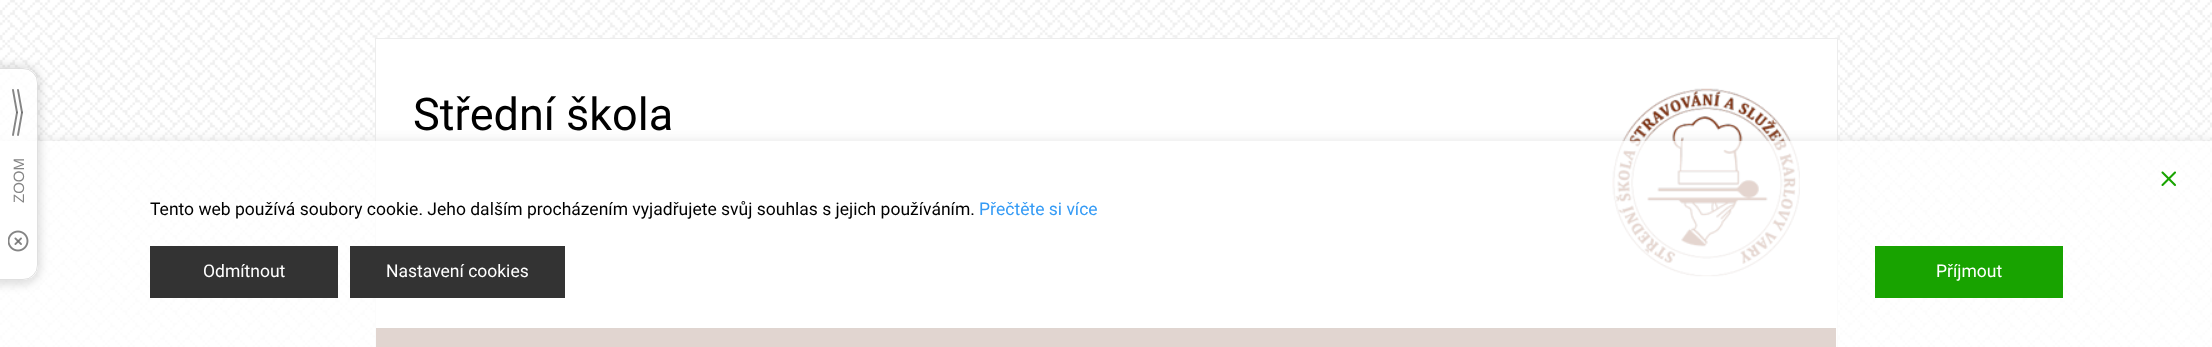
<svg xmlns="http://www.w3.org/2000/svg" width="2212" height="347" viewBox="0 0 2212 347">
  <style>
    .t1 { font: 45px Roboto; fill: #000; }
    .t2 { font: 15px Liberation Sans; fill: #858585; }
    .t3 { font: 17.5px Roboto; fill: #000; }
    .t4 { font: 17.5px Roboto; fill: #359bf5; }
    .t5 { font: 17.5px Roboto; fill: #fff; }
  </style>
  <defs>
    <clipPath id="clip1"><path d="M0 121H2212V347H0ZM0 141H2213V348H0Z" clip-rule="evenodd"/></clipPath>
    <clipPath id="clip2"><path d="M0 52H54V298H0ZM-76 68H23C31.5 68 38 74.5 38 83V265C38 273.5 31.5 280 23 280H-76C-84.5 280-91 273.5-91 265V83C-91 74.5-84.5 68-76 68Z" clip-rule="evenodd"/></clipPath>
  </defs>
  <rect width="100%" height="100%" fill="#fff"/>
  <image x="0" y="0" width="2212" height="347" href="images/1.png"/>
  <rect x="375.5" y="38.5" width="1462" height="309" fill="#fff" stroke="#ededed"/>
  <text x="413" y="130" class="t1">Střední škola</text>
  <image x="1612" y="88" width="188" height="189" href="images/2.png"/>
  <rect x="376" y="329" width="1460" height="18" fill="#683118"/>
  <rect x="376" y="328" width="1460" height="1" fill="#612e16"/>
  <g clip-path="url(#clip1)">
    <rect x="-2" y="143" width="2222" height="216" fill="#ddd" filter="blur(7px)"/>
  </g>
  <rect x="0" y="141" width="2212" height="206" fill="#ffffffcc"/>
  <g clip-path="url(#clip2)">
    <rect x="-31" y="65" width="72" height="220" rx="19" fill="#0000001f" filter="blur(4px)"/>
  </g>
  <rect x="-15" y="68" width="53" height="212" rx="15" fill="#ffffffcc"/>
  <rect x="-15.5" y="68.5" width="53" height="211" rx="14.5" fill="none" stroke="#0000001f"/>
  <path d="M18 90L22 112.5" fill="none" stroke="#666666cc" stroke-width="1.9" stroke-linecap="round"/>
  <path d="M22 112.5L18 135" fill="none" stroke="#666666cc" stroke-width="1.9" stroke-linecap="round"/>
  <path d="M17 112.5L13 90" fill="none" stroke="#666666cc" stroke-width="1.9" stroke-linecap="round"/>
  <path d="M13 135L17 112.5" fill="none" stroke="#666666cc" stroke-width="1.9" stroke-linecap="round"/>
  <text x="24" y="203" transform="rotate(-90 24 203)" class="t2">ZOOM</text>
  <image x="8" y="230" width="21" height="22" href="images/3.png"/>
  <image x="2161" y="171" width="15" height="15" href="images/4.png"/>
  <text x="150" y="215" class="t3">Tento web používá soubory cookie. Jeho dalším procházením vyjadřujete svůj souhlas s jejich používáním.</text>
  <text x="979" y="215" class="t4">Přečtěte si více</text>
  <rect x="150" y="246" width="188" height="52" fill="#333"/>
  <text x="203" y="277" class="t5">Odmítnout</text>
  <rect x="350" y="246" width="215" height="52" fill="#333"/>
  <text x="386" y="277" class="t5">Nastavení cookies</text>
  <rect x="1875" y="246" width="188" height="52" fill="#18a300"/>
  <text x="1936" y="277" class="t5">Příjmout</text>
</svg>
